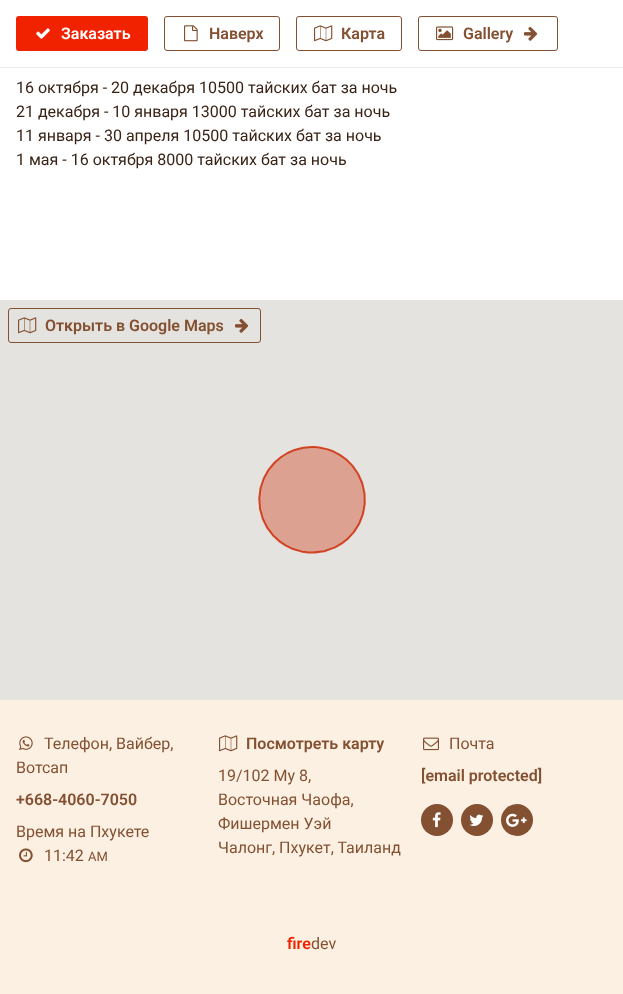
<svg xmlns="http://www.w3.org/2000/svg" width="623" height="994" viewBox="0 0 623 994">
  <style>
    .t1 { font: 600 16px Roboto; fill: #fff; }
    .t2 { font: 600 16px Roboto; fill: #835032; }
    .t3 { font: 16px Roboto; fill: #392316; }
    .t4 { font: 16px Roboto; fill: #835032; }
    .t5 { font: 13px Roboto; fill: #835032; }
    .t6 { font: 600 16px Roboto; fill: #f02200; }
  </style>
  <rect width="100%" height="100%" fill="#fcf0e2"/>
  <rect x="0" y="67" width="623" height="233" fill="#fff"/>
  <rect x="0" y="1" width="623" height="67" fill="#8350321f" filter="blur(0.5px)"/>
  <rect x="0" y="0" width="623" height="67" fill="#fff"/>
  <rect x="16" y="16" width="132" height="35" rx="3" fill="#f02200"/>
  <image x="36" y="28" width="14" height="11" href="images/1.png"/>
  <text x="61" y="39" class="t1">Заказать</text>
  <rect x="164.5" y="16.5" width="115" height="34" rx="2.5" fill="none" stroke="#835032"/>
  <image x="184" y="25" width="14" height="17" href="images/2.png"/>
  <text x="209" y="39" class="t2">Наверх</text>
  <rect x="296.5" y="16.5" width="105" height="34" rx="2.5" fill="none" stroke="#835032"/>
  <image x="314" y="25" width="19" height="17" href="images/3.png"/>
  <text x="341" y="39" class="t2">Карта</text>
  <rect x="418.5" y="16.5" width="139" height="34" rx="2.5" fill="none" stroke="#835032"/>
  <image x="436" y="26" width="18" height="15" href="images/4.png"/>
  <text x="463" y="39" class="t2">Gallery</text>
  <image x="524" y="26" width="14" height="15" href="images/5.png"/>
  <text x="16" y="93" class="t3">16 октября - 20 декабря 10500 тайских бат за ночь</text>
  <text x="16" y="117" class="t3">21 декабря - 10 января 13000 тайских бат за ночь</text>
  <text x="16" y="141" class="t3">11 января - 30 апреля 10500 тайских бат за ночь</text>
  <text x="16" y="165" class="t3">1 мая - 16 октября 8000 тайских бат за ночь</text>
  <rect x="0" y="300" width="623" height="400" fill="#e5e3df"/>
  <image x="258" y="446" width="57" height="108" href="images/6.png"/>
  <image x="315" y="446" width="51" height="108" href="images/7.png"/>
  <rect x="8.5" y="308.5" width="252" height="34" rx="2.5" fill="none" stroke="#835032"/>
  <image x="18" y="317" width="19" height="17" href="images/8.png"/>
  <text x="45" y="331" class="t2">Открыть в Google Maps</text>
  <image x="235" y="318" width="14" height="15" href="images/9.png"/>
  <image x="19" y="736" width="14" height="15" href="images/10.png"/>
  <text x="44" y="749" class="t4">Телефон, Вайбер,</text>
  <text x="16" y="773" class="t4">Вотсап</text>
  <text x="16" y="805" class="t2">+668-4060-7050</text>
  <text x="16" y="837" class="t4">Время на Пхукете</text>
  <image x="19" y="848" width="14" height="15" href="images/11.png"/>
  <text x="44" y="861" class="t4">11:42</text>
  <text x="88" y="861" class="t5">AM</text>
  <image x="219" y="735" width="19" height="17" href="images/12.png"/>
  <text x="246" y="749" class="t2">Посмотреть карту</text>
  <text x="218" y="781" class="t4">19/102 Му 8,</text>
  <text x="218" y="805" class="t4">Восточная Чаофа,</text>
  <text x="218" y="829" class="t4">Фишермен Уэй</text>
  <text x="218" y="853" class="t4">Чалонг, Пхукет, Таиланд</text>
  <image x="423" y="737" width="16" height="14" href="images/13.png"/>
  <text x="449" y="749" class="t4">Почта</text>
  <text x="421" y="781" class="t2">[email protected]</text>
  <circle cx="437" cy="820" r="16" fill="#835032"/>
  <image x="432" y="812" width="9" height="16" href="images/14.png"/>
  <circle cx="477" cy="820" r="16" fill="#835032"/>
  <image x="469" y="814" width="15" height="12" href="images/15.png"/>
  <circle cx="517" cy="820" r="16" fill="#835032"/>
  <image x="506" y="813" width="21" height="14" href="images/16.png"/>
  <text x="287" y="949" class="t6">fire</text>
  <text x="311" y="949" class="t4">dev</text>
</svg>
